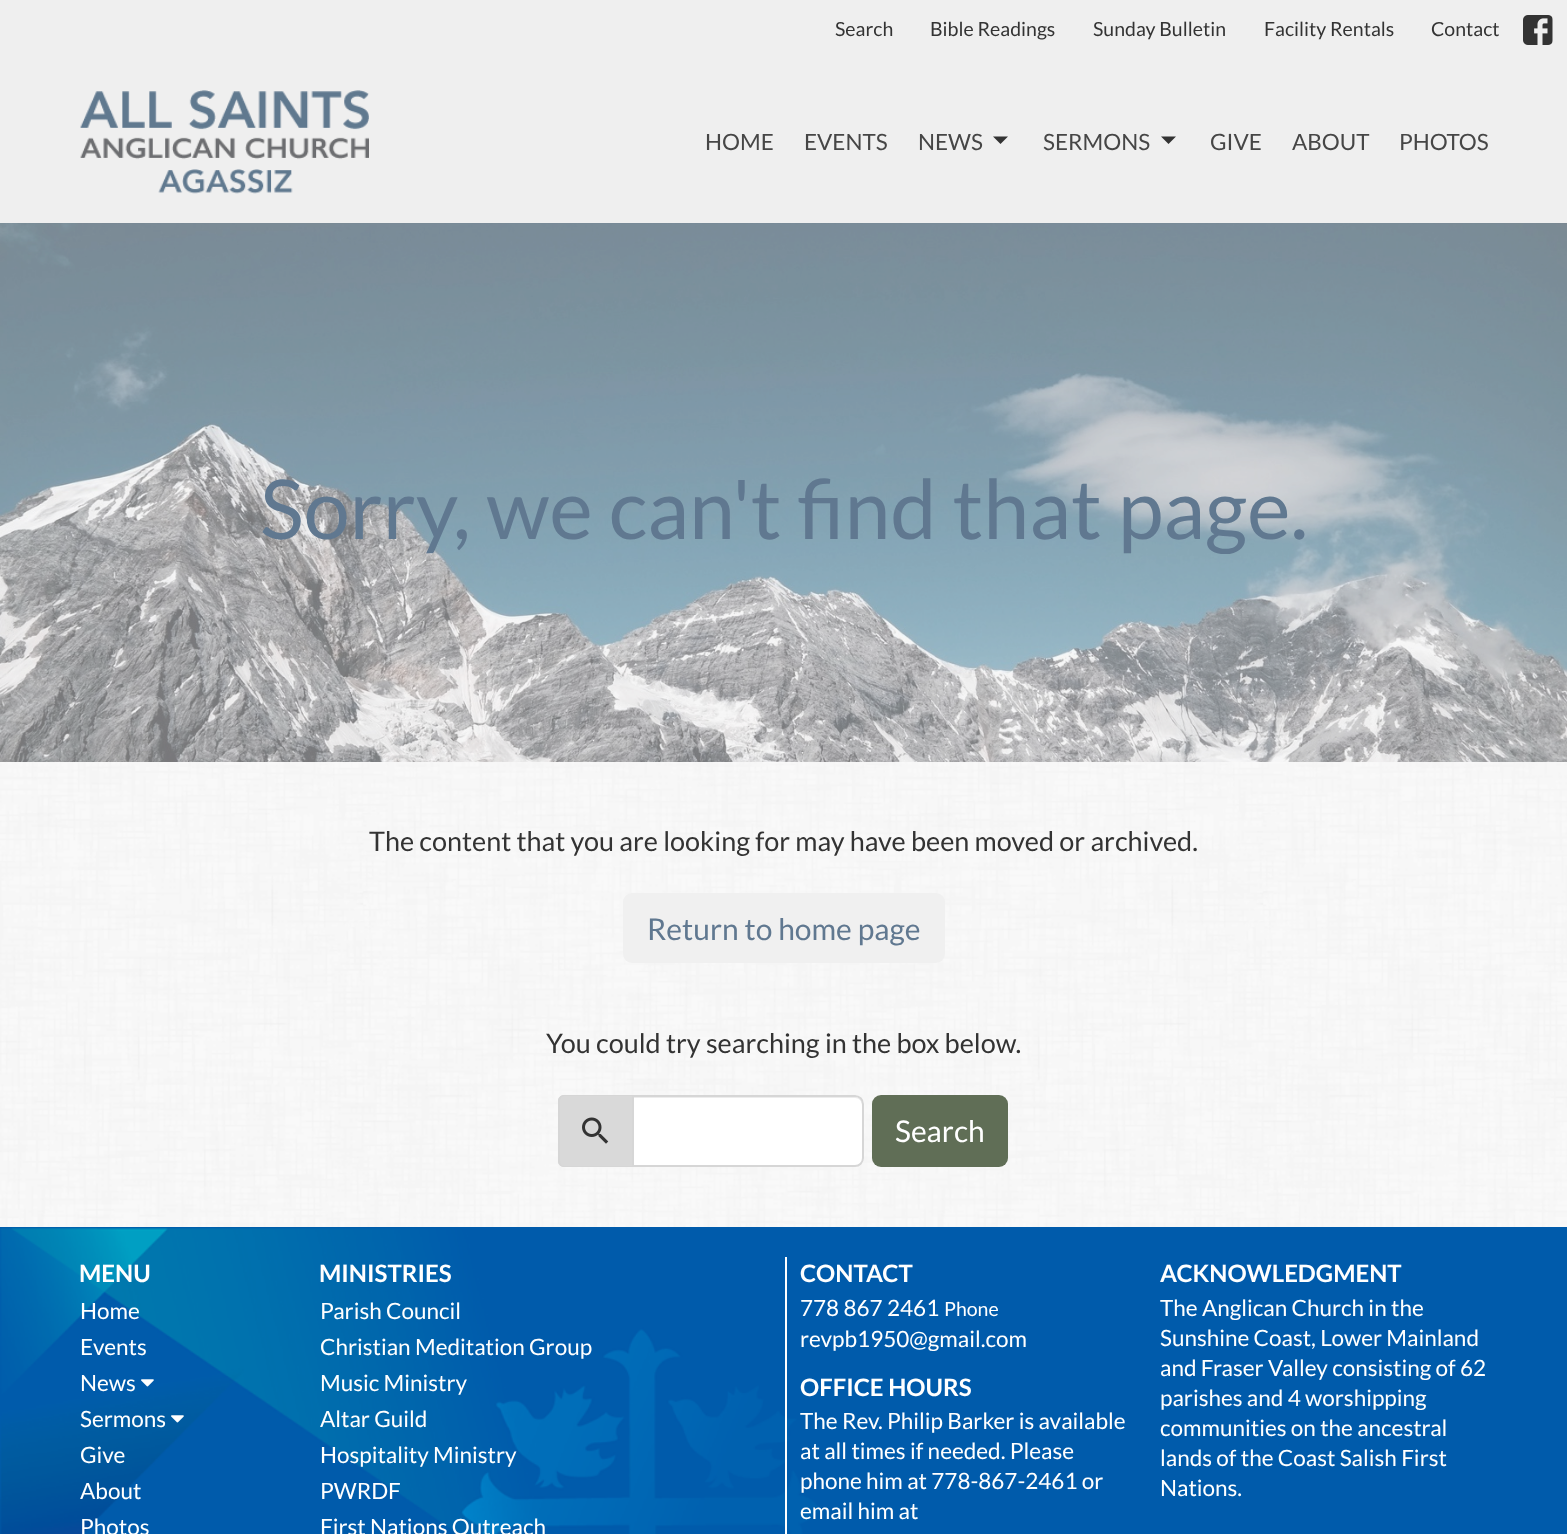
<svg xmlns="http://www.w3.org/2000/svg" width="1567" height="1534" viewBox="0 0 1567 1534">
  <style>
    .t1 { font: 19.5px Lato; fill: #333; }
    .t2 { font: 22.5px Lato; fill: #464646; }
    .t3 { font: 82.5px Lato; fill: #607890; }
    .t4 { font: 27px Lato; fill: #333; }
    .t5 { font: 30px Lato; fill: #607890; }
    .t6 { font: 30px Lato; fill: #fff; }
    .t7 { font: bold 24px Lato; fill: #fff; }
    .t8 { font: 22.5px Lato; fill: #fff; }
    .t9 { font: 19.5px Lato; fill: #fff; }
  </style>
  <rect width="100%" height="100%" fill="#fff"/>
  <image x="0" y="762" width="1567" height="465" href="images/1.png"/>
  <rect x="0" y="0" width="1567" height="224" fill="#efefef"/>
  <text x="835" y="36" class="t1">Search</text>
  <text x="930" y="36" class="t1">Bible Readings</text>
  <text x="1093" y="36" class="t1">Sunday Bulletin</text>
  <text x="1264" y="36" class="t1">Facility Rentals</text>
  <text x="1431" y="36" class="t1">Contact</text>
  <image x="1523" y="15" width="30" height="30" href="images/2.png"/>
  <image x="80" y="90" width="289" height="104" href="images/3.png"/>
  <text x="705" y="150" class="t2">HOME</text>
  <text x="804" y="150" class="t2">EVENTS</text>
  <text x="918" y="150" class="t2">NEWS</text>
  <path d="M993 136.5L1000.5 144L1008 136.5Z" fill="#333"/>
  <text x="1043" y="150" class="t2">SERMONS</text>
  <path d="M1161 136.5L1168.5 144L1176 136.5Z" fill="#333"/>
  <text x="1210" y="150" class="t2">GIVE</text>
  <text x="1292" y="150" class="t2">ABOUT</text>
  <text x="1399" y="150" class="t2">PHOTOS</text>
  <image x="0" y="223" width="1567" height="539" href="images/4.png"/>
  <text x="260" y="539" class="t3">Sorry, we can't find that page.</text>
  <text x="369" y="851" class="t4">The content that you are looking for may have been moved or archived.</text>
  <rect x="623" y="893" width="322" height="70" rx="9" fill="#f0f0f0"/>
  <text x="647" y="940" class="t5">Return to home page</text>
  <text x="546" y="1053" class="t4">You could try searching in the box below.</text>
  <path d="M564 1095H632V1167H564C560.5 1167 558 1164.5 558 1161V1101C558 1097.5 560.5 1095 564 1095Z" fill="#d9d9d9"/>
  <path d="M564 1095H632V1167H564C561 1167 558 1164 558 1161V1101C558 1098 561 1095 564 1095ZM564 1096H632V1166H564C562 1166 560 1163 560 1161V1101C560 1099 562 1096 564 1096Z" fill="#d6d6d6" fill-rule="evenodd"/>
  <image x="582" y="1117" width="27" height="27" href="images/5.png"/>
  <path d="M632 1095H855C860 1095 864 1099 864 1104V1158C864 1163 860 1167 855 1167H632Z" fill="#fff"/>
  <path d="M633 1098H855C859 1098 862 1101 862 1106V1160V1163C862 1161 863 1160 863 1158V1105C863 1101 859 1097 855 1097H633Z" fill="#ececec"/>
  <path d="M633 1096H855C859.5 1096 863 1099.5 863 1104V1158C863 1162.5 859.5 1166 855 1166H633Z" fill="none" stroke="#d6d6d6" stroke-width="2"/>
  <rect x="872" y="1095" width="136" height="72" rx="9" fill="#606e56"/>
  <text x="895" y="1142" class="t6">Search</text>
  <image x="0" y="1227" width="1567" height="307" href="images/6.png"/>
  <text x="79" y="1282" class="t7">MENU</text>
  <text x="80" y="1319" class="t8">Home</text>
  <text x="80" y="1355" class="t8">Events</text>
  <text x="80" y="1391" class="t8">News</text>
  <image x="141" y="1379" width="13" height="8" href="images/7.png"/>
  <text x="80" y="1427" class="t8">Sermons</text>
  <image x="171" y="1415" width="13" height="8" href="images/8.png"/>
  <text x="80" y="1463" class="t8">Give</text>
  <text x="80" y="1499" class="t8">About</text>
  <text x="80" y="1535" class="t8">Photos</text>
  <text x="319" y="1282" class="t7">MINISTRIES</text>
  <text x="320" y="1319" class="t8">Parish Council</text>
  <text x="320" y="1355" class="t8">Christian Meditation Group</text>
  <text x="320" y="1391" class="t8">Music Ministry</text>
  <text x="320" y="1427" class="t8">Altar Guild</text>
  <text x="320" y="1463" class="t8">Hospitality Ministry</text>
  <text x="320" y="1499" class="t8">PWRDF</text>
  <text x="320" y="1535" class="t8">First Nations Outreach</text>
  <rect x="785" y="1257" width="2" height="277" fill="#fff"/>
  <text x="800" y="1282" class="t7">CONTACT</text>
  <text x="800" y="1316" class="t8">778 867 2461</text>
  <text x="944" y="1316" class="t9">Phone</text>
  <text x="800" y="1347" class="t8">revpb1950@gmail.com</text>
  <text x="800" y="1396" class="t7">OFFICE HOURS</text>
  <text x="800" y="1429" class="t8">The Rev. Philip Barker is available</text>
  <text x="800" y="1459" class="t8">at all times if needed. Please</text>
  <text x="800" y="1489" class="t8">phone him at 778-867-2461 or</text>
  <text x="800" y="1519" class="t8">email him at</text>
  <text x="1160" y="1282" class="t7">ACKNOWLEDGMENT</text>
  <text x="1160" y="1316" class="t8">The Anglican Church in the</text>
  <text x="1160" y="1346" class="t8">Sunshine Coast, Lower Mainland</text>
  <text x="1160" y="1376" class="t8">and Fraser Valley consisting of 62</text>
  <text x="1160" y="1406" class="t8">parishes and 4 worshipping</text>
  <text x="1160" y="1436" class="t8">communities on the ancestral</text>
  <text x="1160" y="1466" class="t8">lands of the Coast Salish First</text>
  <text x="1160" y="1496" class="t8">Nations.</text>
</svg>
